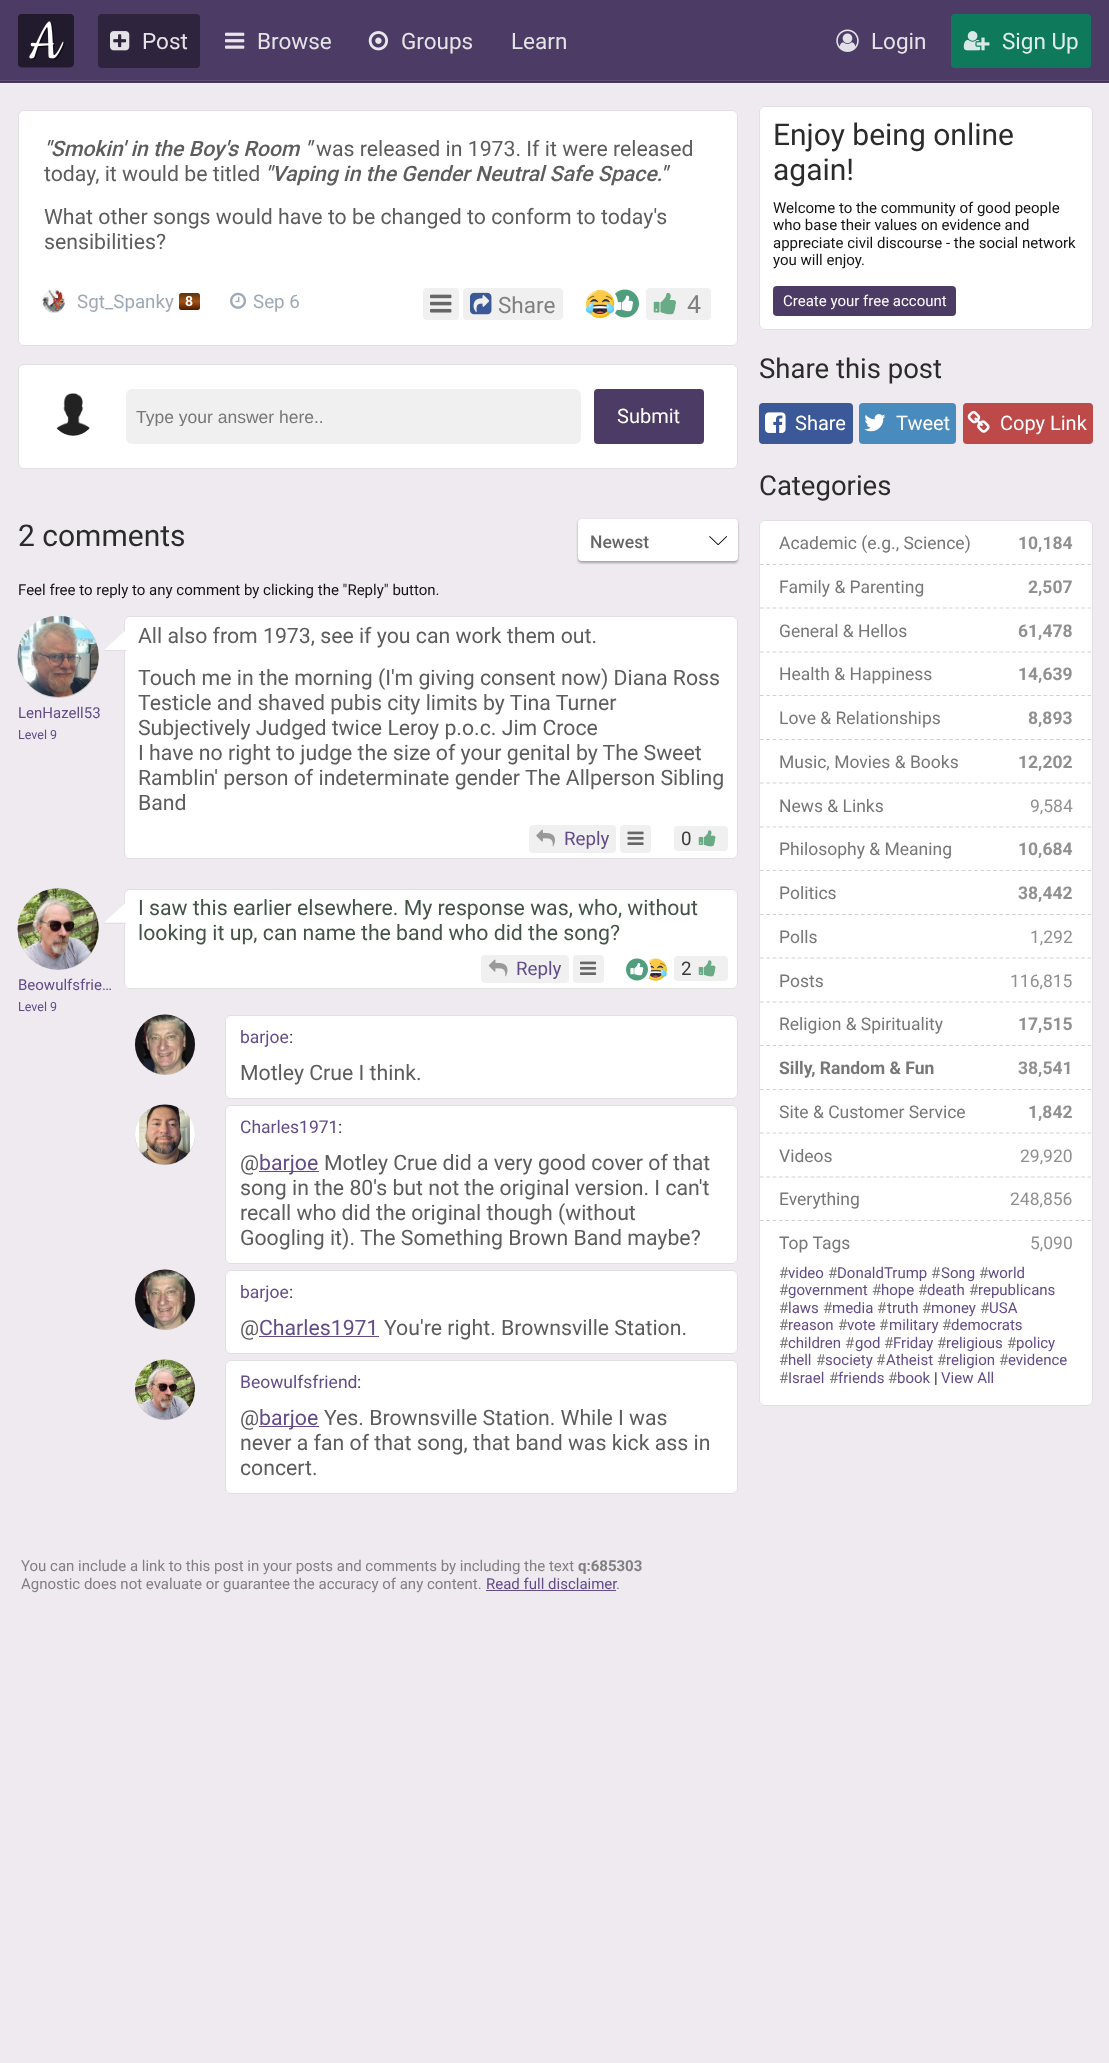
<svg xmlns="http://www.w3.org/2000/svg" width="1109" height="2063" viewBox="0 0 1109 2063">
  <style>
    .t1 { font: 22.5px Roboto; fill: #e4e3e6; }
    .t2 { font: 22.5px Roboto; fill: #e0eeea; }
    .t3 { font: italic 500 21.25px Roboto; fill: #5d5d5d; }
    .t4 { font: 21.25px Roboto; fill: #5d5d5d; }
    .t5 { font: 18.75px Roboto; fill: #9daab5; }
    .t6 { font: bold 14px Roboto; fill: #fff; }
    .t7 { font: 22.5px Roboto; fill: #808080; }
    .t8 { font: 25px Roboto; fill: #808080; }
    .t9 { font: 17.5px Liberation Sans; fill: #777; }
    .t10 { font: 20px Roboto; fill: #fff; }
    .t11 { font: 30px Roboto; fill: #2b2b2b; }
    .t12 { font: 500 17.5px Roboto; fill: #676767; }
    .t13 { font: 15px Roboto; fill: #141414; }
    .t14 { font: 15px Roboto; fill: #634c88; }
    .t15 { font: 12.5px Roboto; fill: #634c88; }
    .t16 { font: 18.75px Roboto; fill: #634c88; }
    .t17 { font: 18.75px Roboto; fill: #3b3b3b; }
    .t18 { font: 21.25px Roboto; fill: #455449; }
    .t19 { font: 17.5px Roboto; fill: #634c88; }
    .t20 { font: 17.5px Roboto; fill: #3b3b3b; }
    .t21 { font: 21.25px Roboto; fill: #634c88; }
    .t22 { font: 15px Roboto; fill: #fff; }
    .t23 { font: 27.5px Roboto; fill: #2b2b2b; }
    .t24 { font: 17.5px Roboto; fill: #777; }
    .t25 { font: bold 17.5px Roboto; fill: #909090; }
    .t26 { font: 17.5px Roboto; fill: #909090; }
    .t27 { font: bold 17.5px Roboto; fill: #777; }
    .t28 { font: 15px Roboto; fill: #777; }
    .t29 { font: 15px Roboto; fill: #808080; }
    .t30 { font: bold 15px Roboto; fill: #808080; }
  </style>
  <defs>
    <linearGradient id="g1" gradientUnits="userSpaceOnUse" x1="189" y1="293" x2="189" y2="310"><stop offset="0" stop-color="#5d310c"/><stop offset="0.5" stop-color="#a25415"/><stop offset="1" stop-color="#501600"/></linearGradient>
    <clipPath id="clip1"><rect x="136" y="406" width="435" height="20"/></clipPath>
  </defs>
  <rect width="100%" height="100%" fill="#eeeaf0"/>
  <rect x="0" y="0" width="1109" height="83" fill="#4c3c65"/>
  <rect x="0" y="80" width="1109" height="1" fill="#5e5074"/>
  <rect x="0" y="81" width="1109" height="1" fill="#3e3152"/>
  <image x="18" y="14" width="56" height="54" href="images/1.png"/>
  <rect x="98" y="14" width="102" height="54" rx="4" fill="#2e243d"/>
  <image x="110" y="31" width="20" height="20" href="images/2.png"/>
  <text x="142" y="49" class="t1">Post</text>
  <image x="225" y="32" width="20" height="17" href="images/3.png"/>
  <text x="257" y="49" class="t1">Browse</text>
  <image x="368" y="31" width="20" height="20" href="images/4.png"/>
  <text x="401" y="49" class="t1">Groups</text>
  <text x="511" y="49" class="t1">Learn</text>
  <image x="836" y="29" width="23" height="23" href="images/5.png"/>
  <text x="871" y="49" class="t1">Login</text>
  <rect x="951" y="14" width="140" height="54" rx="4" fill="#0f795c"/>
  <image x="963" y="31" width="27" height="20" href="images/6.png"/>
  <text x="1002" y="49" class="t2">Sign Up</text>
  <rect x="18" y="110" width="720" height="236" rx="6" fill="#fff"/>
  <rect x="18.5" y="110.5" width="719" height="235" rx="5.5" fill="none" stroke="#0000001f"/>
  <text x="44" y="156" class="t3">"Smokin' in the Boy's Room "</text>
  <text x="316" y="156" class="t4">was released in 1973. If it were released</text>
  <text x="44" y="181" class="t4">today, it would be titled</text>
  <text x="265" y="181" class="t3">"Vaping in the Gender Neutral Safe Space."</text>
  <text x="44" y="224" class="t4">What other songs would have to be changed to conform to today's</text>
  <text x="44" y="249" class="t4">sensibilities?</text>
  <rect x="43" y="290" width="22" height="23" rx="11" fill="#dadada"/>
  <image x="42" y="289" width="23" height="23" href="images/7.png"/>
  <text x="77" y="308" class="t5">Sgt_Spanky</text>
  <rect x="179" y="293" width="21" height="17" rx="2.5" fill="url(#g1)"/>
  <text x="185" y="306" class="t6">8</text>
  <image x="230" y="292" width="16" height="17" href="images/8.png"/>
  <text x="253" y="308" class="t5">Sep 6</text>
  <rect x="423" y="288" width="36" height="32" rx="4" fill="#f0f0f0"/>
  <image x="430" y="294" width="22" height="19" href="images/9.png"/>
  <rect x="463" y="288" width="100" height="32" rx="4" fill="#f0f0f0"/>
  <image x="470" y="292" width="22" height="23" href="images/10.png"/>
  <text x="498" y="313" class="t7">Share</text>
  <image x="614" y="289" width="25" height="29" href="images/12.png"/>
  <circle cx="600.5" cy="303.5" r="17.5" fill="#fff"/>
  <image x="586" y="290" width="29" height="28" href="images/11.png"/>
  <rect x="646" y="288" width="65" height="32" rx="4" fill="#f0f0f0"/>
  <image x="653" y="292" width="23" height="23" href="images/13.png"/>
  <text x="687" y="313" class="t8">4</text>
  <rect x="18" y="364" width="720" height="105" rx="6" fill="#fff"/>
  <rect x="18.5" y="364.5" width="719" height="104" rx="5.5" fill="none" stroke="#0000001f"/>
  <image x="56" y="393" width="34" height="43" href="images/14.png"/>
  <rect x="126" y="389" width="455" height="55" rx="6" fill="#f0f0f0"/>
  <g clip-path="url(#clip1)">
    <text x="136" y="423" class="t9">Type your answer here..</text>
  </g>
  <rect x="594" y="389" width="110" height="55" rx="4" fill="#4c3c65"/>
  <text x="617" y="423" class="t10">Submit</text>
  <text x="18" y="546" class="t11">2 comments</text>
  <rect x="578" y="520" width="160" height="43" rx="4" fill="#0000004d" filter="blur(1px)"/>
  <rect x="578" y="519" width="160" height="42" rx="4" fill="#fff"/>
  <image x="709" y="536" width="18" height="10" href="images/15.png"/>
  <text x="590" y="548" class="t12">Newest</text>
  <text x="18" y="595" class="t13">Feel free to reply to any comment by clicking the "Reply" button.</text>
  <rect x="18" y="616" width="81" height="82" rx="40.5" fill="#bfbfbf"/>
  <image x="17" y="615" width="82" height="82" href="images/16.png"/>
  <text x="18" y="718" class="t14">LenHazell53</text>
  <text x="18" y="739" class="t15">Level 9</text>
  <rect x="124" y="616" width="614" height="243" rx="6" fill="#fff"/>
  <rect x="124.5" y="616.5" width="613" height="242" rx="5.5" fill="none" stroke="#0000001f"/>
  <rect x="104" y="650" width="22" height="1" fill="#e0e0e0"/>
  <path d="M126 650H104L126 630Z" fill="#fff"/>
  <text x="138" y="643" class="t4">All also from 1973, see if you can work them out.</text>
  <text x="138" y="685" class="t4">Touch me in the morning (I'm giving consent now) Diana Ross</text>
  <text x="138" y="710" class="t4">Testicle and shaved pubis city limits by Tina Turner</text>
  <text x="138" y="735" class="t4">Subjectively Judged twice Leroy p.o.c. Jim Croce</text>
  <text x="138" y="760" class="t4">I have no right to judge the size of your genital by The Sweet</text>
  <text x="138" y="785" class="t4">Ramblin' person of indeterminate gender The Allperson Sibling</text>
  <text x="138" y="810" class="t4">Band</text>
  <rect x="529" y="825" width="87" height="28" rx="4" fill="#f0f0f0"/>
  <image x="536" y="829" width="19" height="18" href="images/17.png"/>
  <text x="564" y="845" class="t16">Reply</text>
  <rect x="620" y="825" width="31" height="28" rx="4" fill="#f0f0f0"/>
  <image x="627" y="831" width="17" height="14" href="images/18.png"/>
  <rect x="674" y="826" width="54" height="25" rx="4" fill="#f0f0f0"/>
  <text x="681" y="845" class="t17">0</text>
  <image x="698" y="830" width="18" height="17" href="images/19.png"/>
  <rect x="124" y="889" width="614" height="100" rx="6" fill="#fff"/>
  <rect x="124.5" y="889.5" width="613" height="99" rx="5.5" fill="none" stroke="#0000001f"/>
  <rect x="104" y="923" width="22" height="1" fill="#e0e0e0"/>
  <path d="M126 922.5H104L126 902.5Z" fill="#fff"/>
  <text x="138" y="915" class="t18">I saw this earlier elsewhere. My response was, who, without</text>
  <text x="138" y="940" class="t18">looking it up, can name the band who did the song?</text>
  <rect x="481" y="955" width="88" height="28" rx="4" fill="#f0f0f0"/>
  <image x="488" y="959" width="20" height="18" href="images/20.png"/>
  <text x="516" y="975" class="t16">Reply</text>
  <rect x="573" y="955" width="31" height="28" rx="4" fill="#f0f0f0"/>
  <image x="580" y="961" width="17" height="14" href="images/21.png"/>
  <image x="648" y="958" width="19" height="23" href="images/23.png"/>
  <rect x="623" y="955" width="28" height="29" rx="14" fill="#fff"/>
  <image x="626" y="958" width="22" height="23" href="images/22.png"/>
  <rect x="674" y="956" width="54" height="25" rx="4" fill="#f0f0f0"/>
  <text x="681" y="975" class="t17">2</text>
  <image x="698" y="960" width="18" height="17" href="images/19.png"/>
  <circle cx="58.5" cy="929.5" r="40.5" fill="#bfbfbf"/>
  <image x="17" y="888" width="82" height="82" href="images/24.png"/>
  <text x="18" y="990" class="t14">Beowulfsfrie…</text>
  <text x="18" y="1011" class="t15">Level 9</text>
  <circle cx="165" cy="1045" r="30" fill="#bfbfbf"/>
  <image x="134" y="1014" width="62" height="61" href="images/25.png"/>
  <rect x="225" y="1015" width="513" height="84" rx="6" fill="#fff"/>
  <rect x="225.5" y="1015.5" width="512" height="83" rx="5.5" fill="none" stroke="#0000001f"/>
  <text x="240" y="1043" class="t19">barjoe</text>
  <text x="289" y="1043" class="t20">:</text>
  <text x="240" y="1080" class="t4">Motley Crue I think.</text>
  <circle cx="165" cy="1135" r="30" fill="#bfbfbf"/>
  <image x="135" y="1104" width="60" height="61" href="images/26.png"/>
  <rect x="225" y="1105" width="513" height="159" rx="6" fill="#fff"/>
  <rect x="225.5" y="1105.5" width="512" height="158" rx="5.5" fill="none" stroke="#0000001f"/>
  <text x="240" y="1133" class="t19">Charles1971</text>
  <text x="338" y="1133" class="t20">:</text>
  <text x="240" y="1170" class="t4">@</text>
  <rect x="259" y="1171" width="60" height="1" fill="#634c88"/>
  <text x="259" y="1170" class="t21">barjoe</text>
  <text x="324" y="1170" class="t4">Motley Crue did a very good cover of that</text>
  <text x="240" y="1195" class="t4">song in the 80's but not the original version. I can't</text>
  <text x="240" y="1220" class="t4">recall who did the original though (without</text>
  <text x="240" y="1245" class="t4">Googling it). The Something Brown Band maybe?</text>
  <circle cx="165" cy="1300" r="30" fill="#bfbfbf"/>
  <image x="134" y="1269" width="62" height="61" href="images/25.png"/>
  <rect x="225" y="1270" width="513" height="84" rx="6" fill="#fff"/>
  <rect x="225.5" y="1270.5" width="512" height="83" rx="5.5" fill="none" stroke="#0000001f"/>
  <text x="240" y="1298" class="t19">barjoe</text>
  <text x="289" y="1298" class="t20">:</text>
  <text x="240" y="1335" class="t4">@</text>
  <text x="259" y="1335" class="t21">Charles1971</text>
  <rect x="259" y="1336" width="120" height="1" fill="#634c88"/>
  <text x="384" y="1335" class="t4">You're right. Brownsville Station.</text>
  <circle cx="165" cy="1390" r="30" fill="#bfbfbf"/>
  <image x="134" y="1359" width="62" height="61" href="images/27.png"/>
  <rect x="225" y="1360" width="513" height="134" rx="6" fill="#fff"/>
  <rect x="225.5" y="1360.5" width="512" height="133" rx="5.5" fill="none" stroke="#0000001f"/>
  <text x="240" y="1388" class="t19">Beowulfsfriend</text>
  <text x="357" y="1388" class="t20">:</text>
  <text x="240" y="1425" class="t4">@</text>
  <rect x="259" y="1426" width="60" height="1" fill="#634c88"/>
  <text x="259" y="1425" class="t21">barjoe</text>
  <text x="324" y="1425" class="t4">Yes. Brownsville Station. While I was</text>
  <text x="240" y="1450" class="t4">never a fan of that song, that band was kick ass in</text>
  <text x="240" y="1475" class="t4">concert.</text>
  <rect x="759" y="106" width="334" height="224" rx="6" fill="#fff"/>
  <rect x="759.5" y="106.5" width="333" height="223" rx="5.5" fill="none" stroke="#0000001f"/>
  <text x="773" y="145" class="t11">Enjoy being online</text>
  <text x="773" y="180" class="t11">again!</text>
  <text x="773" y="213" class="t13">Welcome to the community of good people</text>
  <text x="773" y="230" class="t13">who base their values on evidence and</text>
  <text x="773" y="248" class="t13">appreciate civil discourse - the social network</text>
  <text x="773" y="265" class="t13">you will enjoy.</text>
  <rect x="773" y="286" width="183" height="30" rx="4" fill="#4c3c65"/>
  <text x="783" y="306" class="t22">Create your free account</text>
  <text x="759" y="378" class="t23">Share this post</text>
  <rect x="759" y="403" width="94" height="41" rx="4" fill="#3b5998"/>
  <image x="765" y="412" width="21" height="21" href="images/28.png"/>
  <text x="795" y="430" class="t10">Share</text>
  <rect x="859" y="403" width="97" height="41" rx="4" fill="#498bbd"/>
  <image x="864" y="414" width="22" height="18" href="images/29.png"/>
  <text x="896" y="430" class="t10">Tweet</text>
  <rect x="963" y="403" width="130" height="41" rx="4" fill="#bd4949"/>
  <image x="967" y="410" width="23" height="23" href="images/30.png"/>
  <text x="1000" y="430" class="t10">Copy Link</text>
  <text x="759" y="495" class="t23">Categories</text>
  <rect x="759" y="520" width="334" height="886" rx="6" fill="#fff"/>
  <rect x="759.5" y="520.5" width="333" height="885" rx="5.5" fill="none" stroke="#0000001f"/>
  <path d="M760 564.5H1091" fill="none" stroke="#d2d2d2" stroke-width="1.2" stroke-dasharray="3.75 2.55"/>
  <text x="779" y="549" class="t24">Academic (e.g., Science)</text>
  <text x="1018" y="549" class="t25">10,184</text>
  <path d="M760 608H1091" fill="none" stroke="#d2d2d2" stroke-width="1.2" stroke-dasharray="3.75 2.55"/>
  <text x="779" y="593" class="t24">Family &amp; Parenting</text>
  <text x="1028" y="593" class="t25">2,507</text>
  <path d="M760 652H1091" fill="none" stroke="#d2d2d2" stroke-width="1.2" stroke-dasharray="3.75 2.55"/>
  <text x="779" y="637" class="t24">General &amp; Hellos</text>
  <text x="1018" y="637" class="t25">61,478</text>
  <path d="M760 695.5H1091" fill="none" stroke="#d2d2d2" stroke-width="1.2" stroke-dasharray="3.75 2.55"/>
  <text x="779" y="680" class="t24">Health &amp; Happiness</text>
  <text x="1018" y="680" class="t25">14,639</text>
  <path d="M760 739.5H1091" fill="none" stroke="#d2d2d2" stroke-width="1.2" stroke-dasharray="3.75 2.55"/>
  <text x="779" y="724" class="t24">Love &amp; Relationships</text>
  <text x="1028" y="724" class="t25">8,893</text>
  <path d="M760 783H1091" fill="none" stroke="#d2d2d2" stroke-width="1.2" stroke-dasharray="3.75 2.55"/>
  <text x="779" y="768" class="t24">Music, Movies &amp; Books</text>
  <text x="1018" y="768" class="t25">12,202</text>
  <path d="M760 827H1091" fill="none" stroke="#d2d2d2" stroke-width="1.2" stroke-dasharray="3.75 2.55"/>
  <text x="779" y="812" class="t24">News &amp; Links</text>
  <text x="1030" y="812" class="t26">9,584</text>
  <path d="M760 870.5H1091" fill="none" stroke="#d2d2d2" stroke-width="1.2" stroke-dasharray="3.75 2.55"/>
  <text x="779" y="855" class="t24">Philosophy &amp; Meaning</text>
  <text x="1018" y="855" class="t25">10,684</text>
  <path d="M760 914.5H1091" fill="none" stroke="#d2d2d2" stroke-width="1.2" stroke-dasharray="3.75 2.55"/>
  <text x="779" y="899" class="t24">Politics</text>
  <text x="1018" y="899" class="t25">38,442</text>
  <path d="M760 958H1091" fill="none" stroke="#d2d2d2" stroke-width="1.2" stroke-dasharray="3.75 2.55"/>
  <text x="779" y="943" class="t24">Polls</text>
  <text x="1030" y="943" class="t26">1,292</text>
  <path d="M760 1002H1091" fill="none" stroke="#d2d2d2" stroke-width="1.2" stroke-dasharray="3.75 2.55"/>
  <text x="779" y="987" class="t24">Posts</text>
  <text x="1010" y="987" class="t26">116,815</text>
  <path d="M760 1045.5H1091" fill="none" stroke="#d2d2d2" stroke-width="1.2" stroke-dasharray="3.75 2.55"/>
  <text x="779" y="1030" class="t24">Religion &amp; Spirituality</text>
  <text x="1018" y="1030" class="t25">17,515</text>
  <path d="M760 1089.5H1091" fill="none" stroke="#d2d2d2" stroke-width="1.2" stroke-dasharray="3.75 2.55"/>
  <text x="779" y="1074" class="t27">Silly, Random &amp; Fun</text>
  <text x="1018" y="1074" class="t25">38,541</text>
  <path d="M760 1133H1091" fill="none" stroke="#d2d2d2" stroke-width="1.2" stroke-dasharray="3.75 2.55"/>
  <text x="779" y="1118" class="t24">Site &amp; Customer Service</text>
  <text x="1028" y="1118" class="t25">1,842</text>
  <path d="M760 1177H1091" fill="none" stroke="#d2d2d2" stroke-width="1.2" stroke-dasharray="3.75 2.55"/>
  <text x="779" y="1162" class="t24">Videos</text>
  <text x="1020" y="1162" class="t26">29,920</text>
  <path d="M760 1220.5H1091" fill="none" stroke="#d2d2d2" stroke-width="1.2" stroke-dasharray="3.75 2.55"/>
  <text x="779" y="1205" class="t24">Everything</text>
  <text x="1010" y="1205" class="t26">248,856</text>
  <text x="779" y="1249" class="t24">Top Tags</text>
  <text x="1030" y="1249" class="t26">5,090</text>
  <text x="779" y="1278" class="t28">#</text>
  <text x="788" y="1278" class="t14">video</text>
  <text x="828" y="1278" class="t28">#</text>
  <text x="837" y="1278" class="t14">DonaldTrump</text>
  <text x="931" y="1278" class="t28">#</text>
  <text x="941" y="1278" class="t14">Song</text>
  <text x="979" y="1278" class="t28">#</text>
  <text x="988" y="1278" class="t14">world</text>
  <text x="779" y="1295" class="t28">#</text>
  <text x="788" y="1295" class="t14">government</text>
  <text x="872" y="1295" class="t28">#</text>
  <text x="881" y="1295" class="t14">hope</text>
  <text x="918" y="1295" class="t28">#</text>
  <text x="927" y="1295" class="t14">death</text>
  <text x="969" y="1295" class="t28">#</text>
  <text x="978" y="1295" class="t14">republicans</text>
  <text x="779" y="1313" class="t28">#</text>
  <text x="788" y="1313" class="t14">laws</text>
  <text x="823" y="1313" class="t28">#</text>
  <text x="832" y="1313" class="t14">media</text>
  <text x="877" y="1313" class="t28">#</text>
  <text x="887" y="1313" class="t14">truth</text>
  <text x="922" y="1313" class="t28">#</text>
  <text x="931" y="1313" class="t14">money</text>
  <text x="980" y="1313" class="t28">#</text>
  <text x="989" y="1313" class="t14">USA</text>
  <text x="779" y="1330" class="t28">#</text>
  <text x="788" y="1330" class="t14">reason</text>
  <text x="838" y="1330" class="t28">#</text>
  <text x="847" y="1330" class="t14">vote</text>
  <text x="879" y="1330" class="t28">#</text>
  <text x="889" y="1330" class="t14">military</text>
  <text x="942" y="1330" class="t28">#</text>
  <text x="951" y="1330" class="t14">democrats</text>
  <text x="779" y="1348" class="t28">#</text>
  <text x="788" y="1348" class="t14">children</text>
  <text x="845" y="1348" class="t28">#</text>
  <text x="855" y="1348" class="t14">god</text>
  <text x="884" y="1348" class="t28">#</text>
  <text x="893" y="1348" class="t14">Friday</text>
  <text x="937" y="1348" class="t28">#</text>
  <text x="946" y="1348" class="t14">religious</text>
  <text x="1007" y="1348" class="t28">#</text>
  <text x="1016" y="1348" class="t14">policy</text>
  <text x="779" y="1365" class="t28">#</text>
  <text x="788" y="1365" class="t14">hell</text>
  <text x="816" y="1365" class="t28">#</text>
  <text x="825" y="1365" class="t14">society</text>
  <text x="876" y="1365" class="t28">#</text>
  <text x="886" y="1365" class="t14">Atheist</text>
  <text x="937" y="1365" class="t28">#</text>
  <text x="946" y="1365" class="t14">religion</text>
  <text x="999" y="1365" class="t28">#</text>
  <text x="1008" y="1365" class="t14">evidence</text>
  <text x="779" y="1383" class="t28">#</text>
  <text x="788" y="1383" class="t14">Israel</text>
  <text x="829" y="1383" class="t28">#</text>
  <text x="838" y="1383" class="t14">friends</text>
  <text x="888" y="1383" class="t28">#</text>
  <text x="897" y="1383" class="t14">book</text>
  <text x="934" y="1383" class="t13">|</text>
  <text x="941" y="1383" class="t14">View All</text>
  <text x="21" y="1571" class="t29">You can include a link to this post in your posts and comments by including the text</text>
  <text x="578" y="1571" class="t30">q:685303</text>
  <text x="21" y="1589" class="t29">Agnostic does not evaluate or guarantee the accuracy of any content.</text>
  <text x="486" y="1589" class="t14">Read full disclaimer</text>
  <rect x="486" y="1590" width="130" height="1" fill="#634c88"/>
  <text x="616" y="1589" class="t29">.</text>
</svg>
